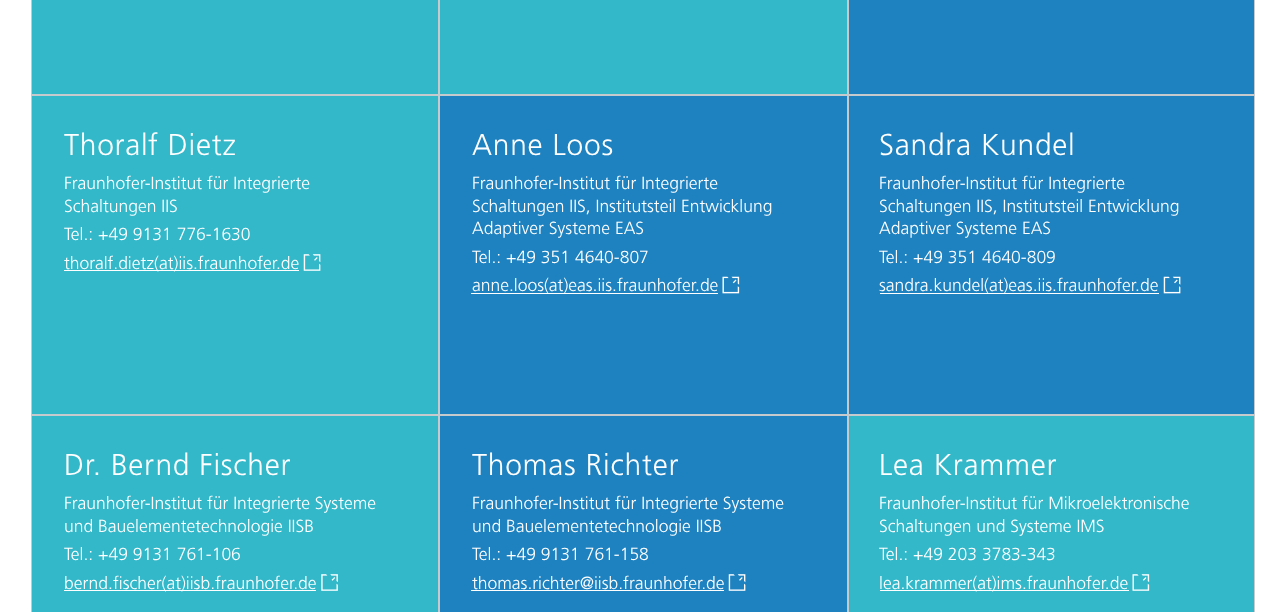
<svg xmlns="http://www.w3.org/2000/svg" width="1286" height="612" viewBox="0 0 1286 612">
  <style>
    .t1 { font: 300 30px Frutiger; letter-spacing: 0.75px; fill: #fff; }
    .t2 { font: 300 17.5px Frutiger; fill: #fff; }
  </style>
  <rect width="100%" height="100%" fill="#fff"/>
  <rect x="31.5" y="-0.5" width="407" height="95" fill="#33b8ca" stroke="#c7cacc"/>
  <rect x="439.5" y="-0.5" width="408" height="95" fill="#33b8ca" stroke="#c7cacc"/>
  <rect x="848.5" y="-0.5" width="406" height="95" fill="#1f82c0" stroke="#c7cacc"/>
  <rect x="31.5" y="95.5" width="407" height="319" fill="#33b8ca" stroke="#c7cacc"/>
  <text x="64" y="155" class="t1">Thoralf Dietz</text>
  <text x="64" y="189" class="t2">Fraunhofer-Institut für Integrierte</text>
  <text x="64" y="212" class="t2">Schaltungen IIS</text>
  <text x="64" y="240" class="t2">Tel.: +49 9131 776-1630</text>
  <rect x="64" y="270" width="235" height="1" fill="#fff"/>
  <text x="64" y="269" class="t2">thoralf.dietz(at)iis.fraunhofer.de</text>
  <image x="303" y="254" width="18" height="17" href="images/1.png"/>
  <rect x="439.5" y="95.5" width="408" height="319" fill="#1f82c0" stroke="#c7cacc"/>
  <text x="472" y="155" class="t1">Anne Loos</text>
  <text x="472" y="189" class="t2">Fraunhofer-Institut für Integrierte</text>
  <text x="472" y="212" class="t2">Schaltungen IIS, Institutsteil Entwicklung</text>
  <text x="472" y="234" class="t2">Adaptiver Systeme EAS</text>
  <text x="472" y="263" class="t2">Tel.: +49 351 4640-807</text>
  <rect x="471" y="293" width="247" height="1" fill="#fff"/>
  <text x="472" y="291" class="t2">anne.loos(at)eas.iis.fraunhofer.de</text>
  <image x="722" y="276" width="18" height="18" href="images/2.png"/>
  <rect x="848.5" y="95.5" width="406" height="319" fill="#1f82c0" stroke="#c7cacc"/>
  <text x="879" y="155" class="t1">Sandra Kundel</text>
  <text x="879" y="189" class="t2">Fraunhofer-Institut für Integrierte</text>
  <text x="879" y="212" class="t2">Schaltungen IIS, Institutsteil Entwicklung</text>
  <text x="879" y="234" class="t2">Adaptiver Systeme EAS</text>
  <text x="879" y="263" class="t2">Tel.: +49 351 4640-809</text>
  <rect x="880" y="293" width="279" height="1" fill="#fff"/>
  <text x="879" y="291" class="t2">sandra.kundel(at)eas.iis.fraunhofer.de</text>
  <image x="1163" y="276" width="18" height="18" href="images/3.png"/>
  <rect x="31.5" y="415.5" width="407" height="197" fill="#33b8ca" stroke="#c7cacc"/>
  <text x="64" y="475" class="t1">Dr. Bernd Fischer</text>
  <text x="64" y="509" class="t2">Fraunhofer-Institut für Integrierte Systeme</text>
  <text x="64" y="532" class="t2">und Bauelementetechnologie IISB</text>
  <text x="64" y="560" class="t2">Tel.: +49 9131 761-106</text>
  <rect x="64" y="590" width="252" height="1" fill="#fff"/>
  <text x="64" y="589" class="t2">bernd.fischer(at)iisb.fraunhofer.de</text>
  <image x="321" y="574" width="17" height="17" href="images/4.png"/>
  <rect x="439.5" y="415.5" width="408" height="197" fill="#1f82c0" stroke="#c7cacc"/>
  <text x="472" y="475" class="t1">Thomas Richter</text>
  <text x="472" y="509" class="t2">Fraunhofer-Institut für Integrierte Systeme</text>
  <text x="472" y="532" class="t2">und Bauelementetechnologie IISB</text>
  <text x="472" y="560" class="t2">Tel.: +49 9131 761-158</text>
  <text x="472" y="589" class="t2">thomas.richter@iisb.fraunhofer.de</text>
  <rect x="471" y="590" width="253" height="1" fill="#fff"/>
  <image x="728" y="574" width="18" height="17" href="images/5.png"/>
  <rect x="848.5" y="415.5" width="406" height="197" fill="#33b8ca" stroke="#c7cacc"/>
  <text x="879" y="475" class="t1">Lea Krammer</text>
  <text x="879" y="509" class="t2">Fraunhofer-Institut für Mikroelektronische</text>
  <text x="879" y="532" class="t2">Schaltungen und Systeme IMS</text>
  <text x="879" y="560" class="t2">Tel.: +49 203 3783-343</text>
  <rect x="880" y="590" width="249" height="1" fill="#fff"/>
  <text x="879" y="589" class="t2">lea.krammer(at)ims.fraunhofer.de</text>
  <image x="1132" y="574" width="18" height="17" href="images/6.png"/>
</svg>
